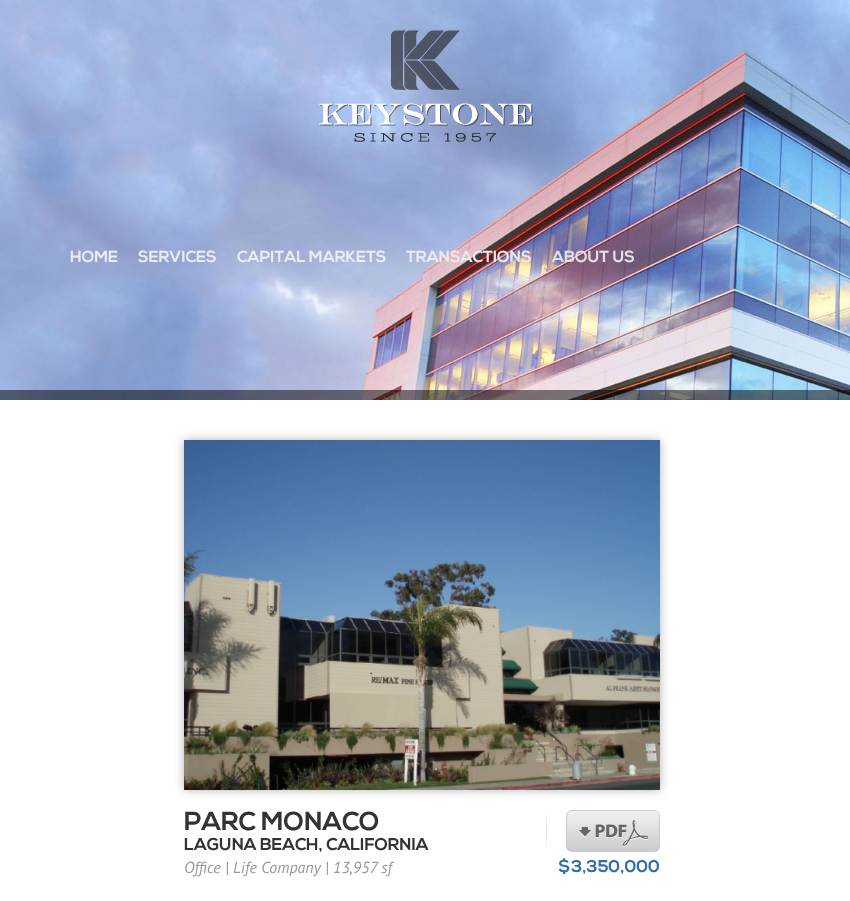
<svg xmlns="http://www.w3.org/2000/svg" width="850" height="901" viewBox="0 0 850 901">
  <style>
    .t1 { font: bold 16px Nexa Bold; fill: #eaedf6; }
    .t2 { font: bold 16px Nexa Bold; fill: #ede9ee; }
    .t3 { font: bold 16px Nexa Bold; fill: #e5e0e7; }
    .t4 { font: bold 26px Nexa Bold; fill: #333; }
    .t5 { font: bold 17px Nexa Bold; fill: #333; }
    .t6 { font: italic 16px PT Sans; fill: #989898; }
    .t7 { font: bold 17px Nexa Bold; fill: #346daa; }
  </style>
  <defs>
    <linearGradient id="g1" gradientUnits="userSpaceOnUse" x1="547" y1="810" x2="547" y2="852"><stop offset="0" stop-color="#fff"/><stop offset="0.5" stop-color="#ddd"/><stop offset="1" stop-color="#fff"/></linearGradient>
  </defs>
  <rect width="100%" height="100%" fill="#fff"/>
  <image x="0" y="0" width="850" height="400" href="images/1.png"/>
  <image x="319" y="30" width="214" height="112" href="images/2.png"/>
  <text x="70" y="262" class="t1">HOME</text>
  <text x="138" y="262" class="t1">SERVICES</text>
  <text x="237" y="262" class="t1">CAPITAL MARKETS</text>
  <text x="406" y="262" class="t2">TRANSACTIONS</text>
  <text x="552" y="262" class="t3">ABOUT US</text>
  <rect x="0" y="390" width="850" height="10" fill="#00000080"/>
  <rect x="184" y="440" width="476" height="350" fill="#0000004d" filter="blur(5px)"/>
  <image x="184" y="440" width="476" height="350" href="images/3.png"/>
  <rect x="546" y="810" width="1" height="42" fill="url(#g1)"/>
  <image x="567" y="811" width="92" height="40" href="images/4.png"/>
  <rect x="566.5" y="810.5" width="93" height="41" rx="5.5" fill="none" stroke="#cbcbcb"/>
  <text x="184" y="830" class="t4">PARC MONACO</text>
  <text x="184" y="850" class="t5">LAGUNA BEACH, CALIFORNIA</text>
  <text x="184" y="873" class="t6">Office |</text>
  <text x="233" y="873" class="t6">Life Company</text>
  <text x="325" y="873" class="t6">| 13,957 sf</text>
  <text x="558" y="872" class="t7">$3,350,000</text>
</svg>
